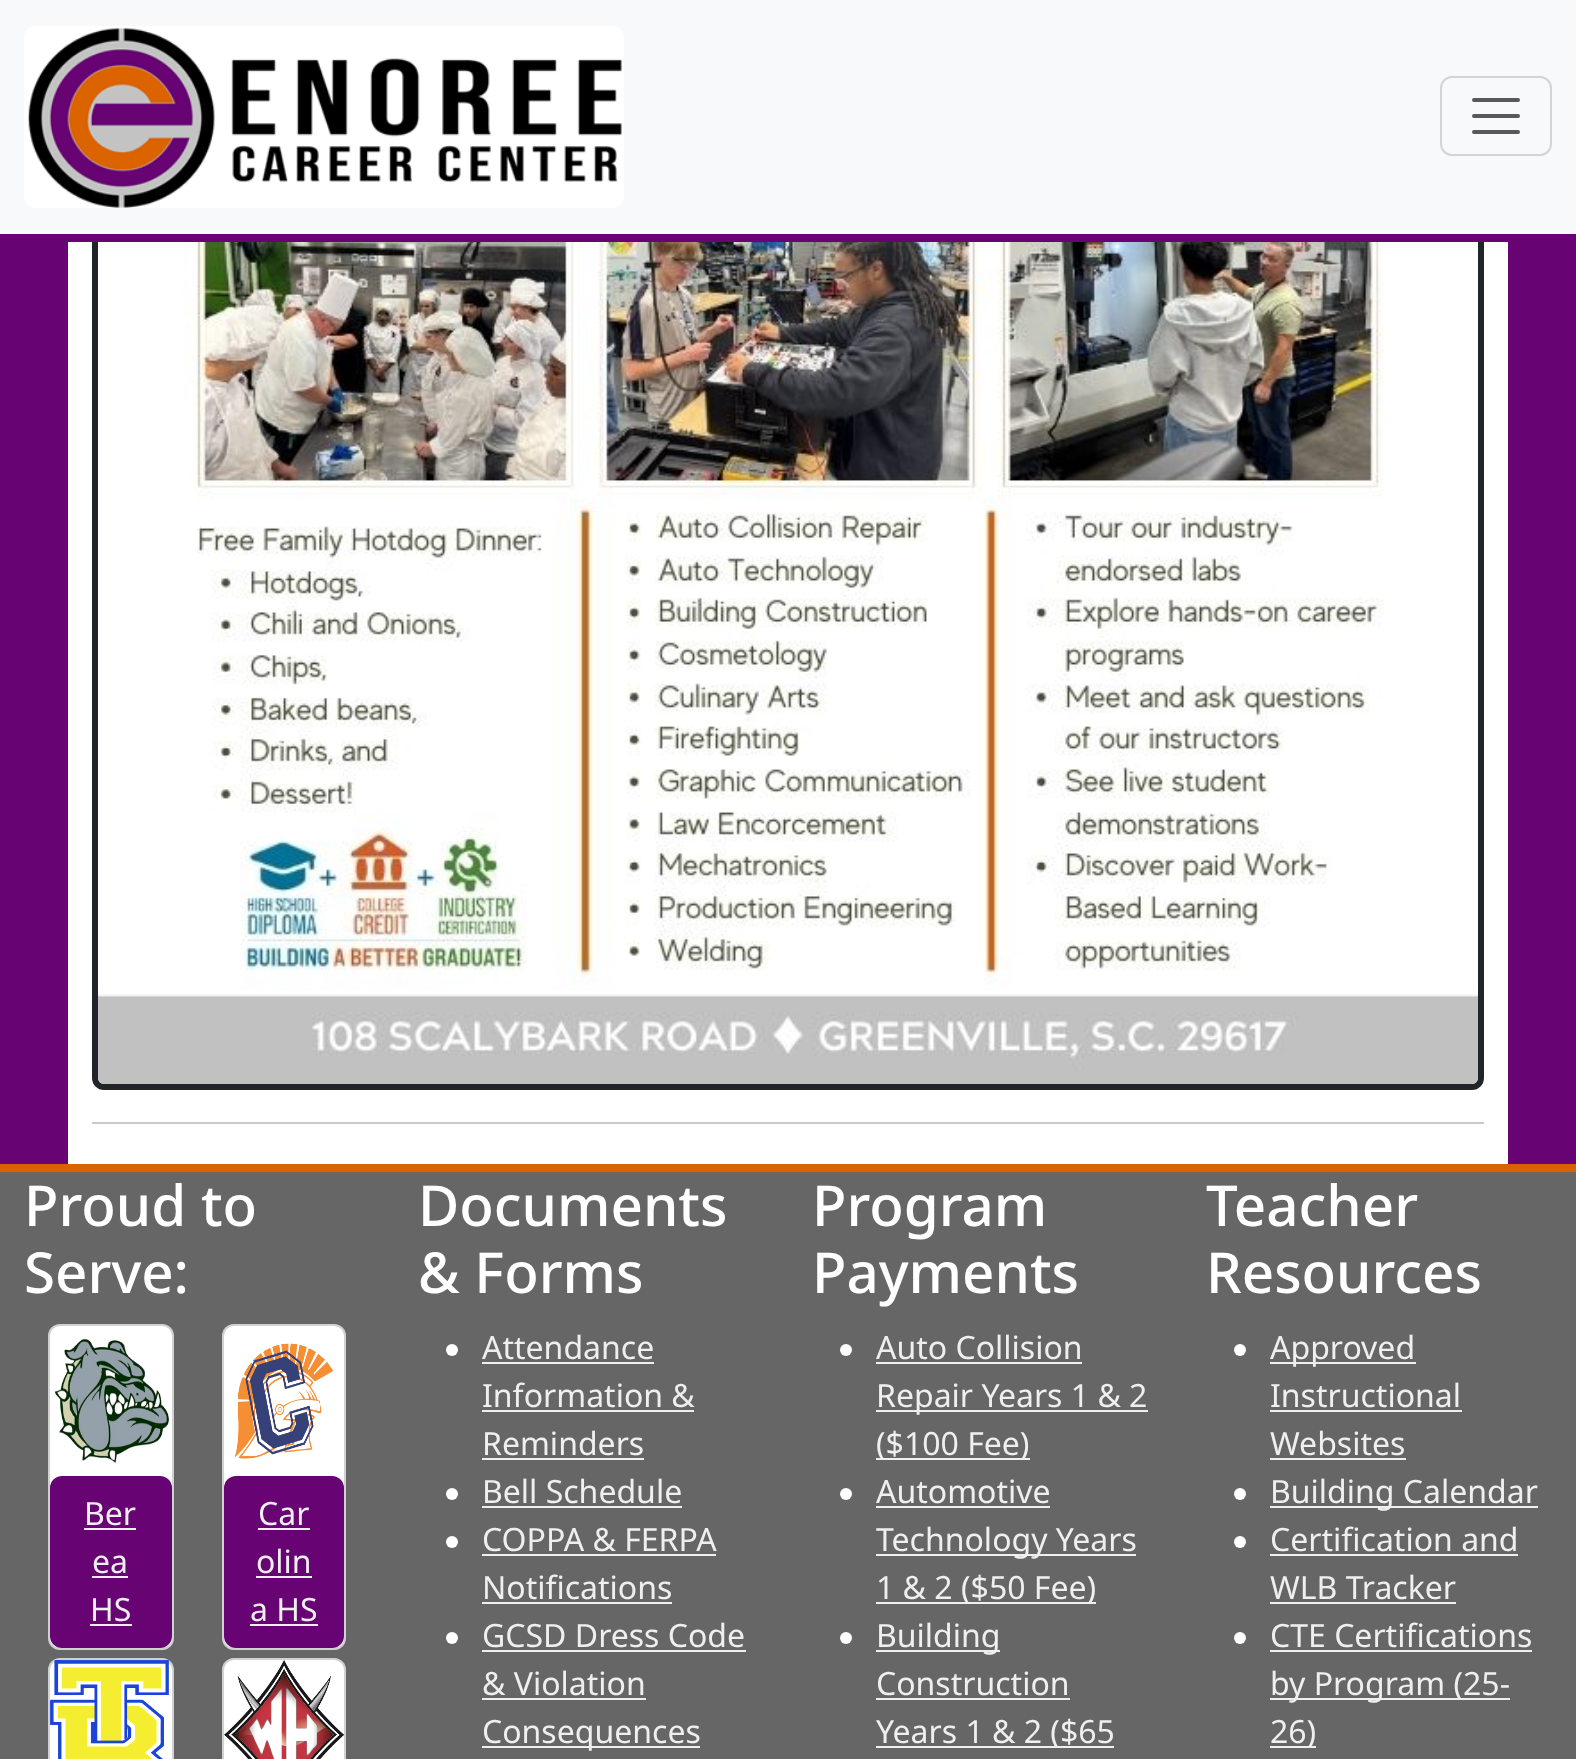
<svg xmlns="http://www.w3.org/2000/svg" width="1576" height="1759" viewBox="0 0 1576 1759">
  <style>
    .t1 { font: 500 56.5px Noto Sans; fill: #fff; }
    .t2 { font: 32px Noto Sans; fill: #efefef; }
  </style>
  <rect width="100%" height="100%" fill="#670373"/>
  <rect x="68" y="242" width="1440" height="922" fill="#fff"/>
  <rect x="95" y="-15" width="1386" height="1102" rx="9" fill="none" stroke="#212529" stroke-width="6"/>
  <image x="98" y="242" width="1380" height="842" href="images/1.png"/>
  <rect x="92" y="1122" width="1392" height="2" fill="#c8c9ca"/>
  <rect x="0" y="0" width="1576" height="234" fill="#f8f9fa"/>
  <rect x="92" y="234" width="1392" height="8" fill="#670373"/>
  <image x="24" y="26" width="600" height="182" href="images/2.png"/>
  <rect x="1441" y="77" width="110" height="78" rx="11" fill="none" stroke="#d3d4d5" stroke-width="2"/>
  <path d="M1474 100H1518M1474 116H1518M1474 132H1518" fill="none" stroke="#575a5d" stroke-width="4" stroke-linecap="round"/>
  <rect x="0" y="1172" width="1576" height="587" fill="#666"/>
  <rect x="0" y="1164" width="1576" height="8" fill="#d96301"/>
  <text x="24" y="1226" class="t1">Proud to</text>
  <text x="24" y="1293" class="t1">Serve:</text>
  <rect x="48" y="1324" width="126" height="326" rx="12" fill="#fff"/>
  <rect x="49" y="1325" width="124" height="324" rx="11" fill="none" stroke="#0000002e" stroke-width="2"/>
  <image x="55" y="1338" width="114" height="126" href="images/3.png"/>
  <rect x="50" y="1476" width="122" height="172" rx="12" fill="#670373"/>
  <text x="84" y="1525" class="t2">Ber</text>
  <rect x="84" y="1528" width="52" height="2" fill="#efefef"/>
  <text x="92" y="1573" class="t2">ea</text>
  <rect x="92" y="1576" width="36" height="2" fill="#efefef"/>
  <text x="90" y="1621" class="t2">HS</text>
  <rect x="90" y="1624" width="42" height="2" fill="#efefef"/>
  <rect x="222" y="1324" width="124" height="326" rx="12" fill="#fff"/>
  <rect x="223" y="1325" width="122" height="324" rx="11" fill="none" stroke="#0000002e" stroke-width="2"/>
  <image x="235" y="1343" width="99" height="116" href="images/4.png"/>
  <rect x="224" y="1476" width="120" height="172" rx="12" fill="#670373"/>
  <text x="258" y="1525" class="t2">Car</text>
  <rect x="258" y="1528" width="52" height="2" fill="#efefef"/>
  <text x="256" y="1573" class="t2">olin</text>
  <rect x="256" y="1576" width="56" height="2" fill="#efefef"/>
  <text x="250" y="1621" class="t2">a HS</text>
  <rect x="250" y="1624" width="68" height="2" fill="#efefef"/>
  <rect x="48" y="1658" width="126" height="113" rx="12" fill="#fff"/>
  <rect x="49" y="1659" width="124" height="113" rx="11" fill="none" stroke="#0000002e" stroke-width="2"/>
  <image x="50" y="1660" width="119" height="99" href="images/5.png"/>
  <rect x="222" y="1658" width="124" height="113" rx="12" fill="#fff"/>
  <rect x="223" y="1659" width="122" height="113" rx="11" fill="none" stroke="#0000002e" stroke-width="2"/>
  <image x="224" y="1660" width="120" height="99" href="images/6.png"/>
  <text x="418" y="1226" class="t1">Documents</text>
  <text x="418" y="1293" class="t1">&amp; Forms</text>
  <circle cx="452" cy="1350" r="6" fill="#fff"/>
  <text x="482" y="1359" class="t2">Attendance</text>
  <rect x="482" y="1362" width="172" height="2" fill="#efefef"/>
  <text x="482" y="1407" class="t2">Information &amp;</text>
  <rect x="482" y="1410" width="212" height="2" fill="#efefef"/>
  <text x="482" y="1455" class="t2">Reminders</text>
  <rect x="482" y="1458" width="162" height="2" fill="#efefef"/>
  <circle cx="452" cy="1494" r="6" fill="#fff"/>
  <text x="482" y="1503" class="t2">Bell Schedule</text>
  <rect x="482" y="1506" width="200" height="2" fill="#efefef"/>
  <circle cx="452" cy="1542" r="6" fill="#fff"/>
  <text x="482" y="1551" class="t2">COPPA &amp; FERPA</text>
  <rect x="482" y="1554" width="234" height="2" fill="#efefef"/>
  <text x="482" y="1599" class="t2">Notifications</text>
  <rect x="482" y="1602" width="190" height="2" fill="#efefef"/>
  <circle cx="452" cy="1638" r="6" fill="#fff"/>
  <text x="482" y="1647" class="t2">GCSD Dress Code</text>
  <rect x="482" y="1650" width="264" height="2" fill="#efefef"/>
  <text x="482" y="1695" class="t2">&amp; Violation</text>
  <rect x="482" y="1698" width="164" height="2" fill="#efefef"/>
  <rect x="482" y="1746" width="218" height="2" fill="#efefef"/>
  <text x="482" y="1743" class="t2">Consequences</text>
  <text x="812" y="1226" class="t1">Program</text>
  <text x="812" y="1293" class="t1">Payments</text>
  <circle cx="846" cy="1350" r="6" fill="#fff"/>
  <text x="876" y="1359" class="t2">Auto Collision</text>
  <rect x="876" y="1362" width="206" height="2" fill="#efefef"/>
  <rect x="876" y="1410" width="272" height="2" fill="#efefef"/>
  <text x="876" y="1407" class="t2">Repair Years 1 &amp; 2</text>
  <rect x="876" y="1458" width="154" height="2" fill="#efefef"/>
  <text x="876" y="1455" class="t2">($100 Fee)</text>
  <circle cx="846" cy="1494" r="6" fill="#fff"/>
  <text x="876" y="1503" class="t2">Automotive</text>
  <rect x="876" y="1506" width="174" height="2" fill="#efefef"/>
  <rect x="876" y="1554" width="260" height="2" fill="#efefef"/>
  <text x="876" y="1551" class="t2">Technology Years</text>
  <rect x="876" y="1602" width="220" height="2" fill="#efefef"/>
  <text x="876" y="1599" class="t2">1 &amp; 2 ($50 Fee)</text>
  <circle cx="846" cy="1638" r="6" fill="#fff"/>
  <rect x="876" y="1650" width="124" height="2" fill="#efefef"/>
  <text x="876" y="1647" class="t2">Building</text>
  <text x="876" y="1695" class="t2">Construction</text>
  <rect x="876" y="1698" width="194" height="2" fill="#efefef"/>
  <rect x="876" y="1746" width="238" height="2" fill="#efefef"/>
  <text x="876" y="1743" class="t2">Years 1 &amp; 2 ($65</text>
  <text x="1206" y="1226" class="t1">Teacher</text>
  <text x="1206" y="1293" class="t1">Resources</text>
  <circle cx="1240" cy="1350" r="6" fill="#fff"/>
  <rect x="1270" y="1362" width="146" height="2" fill="#efefef"/>
  <text x="1270" y="1359" class="t2">Approved</text>
  <text x="1270" y="1407" class="t2">Instructional</text>
  <rect x="1270" y="1410" width="192" height="2" fill="#efefef"/>
  <text x="1270" y="1455" class="t2">Websites</text>
  <rect x="1270" y="1458" width="136" height="2" fill="#efefef"/>
  <circle cx="1240" cy="1494" r="6" fill="#fff"/>
  <rect x="1270" y="1506" width="268" height="2" fill="#efefef"/>
  <text x="1270" y="1503" class="t2">Building Calendar</text>
  <circle cx="1240" cy="1542" r="6" fill="#fff"/>
  <text x="1270" y="1551" class="t2">Certification and</text>
  <rect x="1270" y="1554" width="248" height="2" fill="#efefef"/>
  <text x="1270" y="1599" class="t2">WLB Tracker</text>
  <rect x="1270" y="1602" width="186" height="2" fill="#efefef"/>
  <circle cx="1240" cy="1638" r="6" fill="#fff"/>
  <text x="1270" y="1647" class="t2">CTE Certifications</text>
  <rect x="1270" y="1650" width="262" height="2" fill="#efefef"/>
  <rect x="1270" y="1698" width="240" height="2" fill="#efefef"/>
  <text x="1270" y="1695" class="t2">by Program (25-</text>
  <rect x="1270" y="1746" width="46" height="2" fill="#efefef"/>
  <text x="1270" y="1743" class="t2">26)</text>
</svg>
